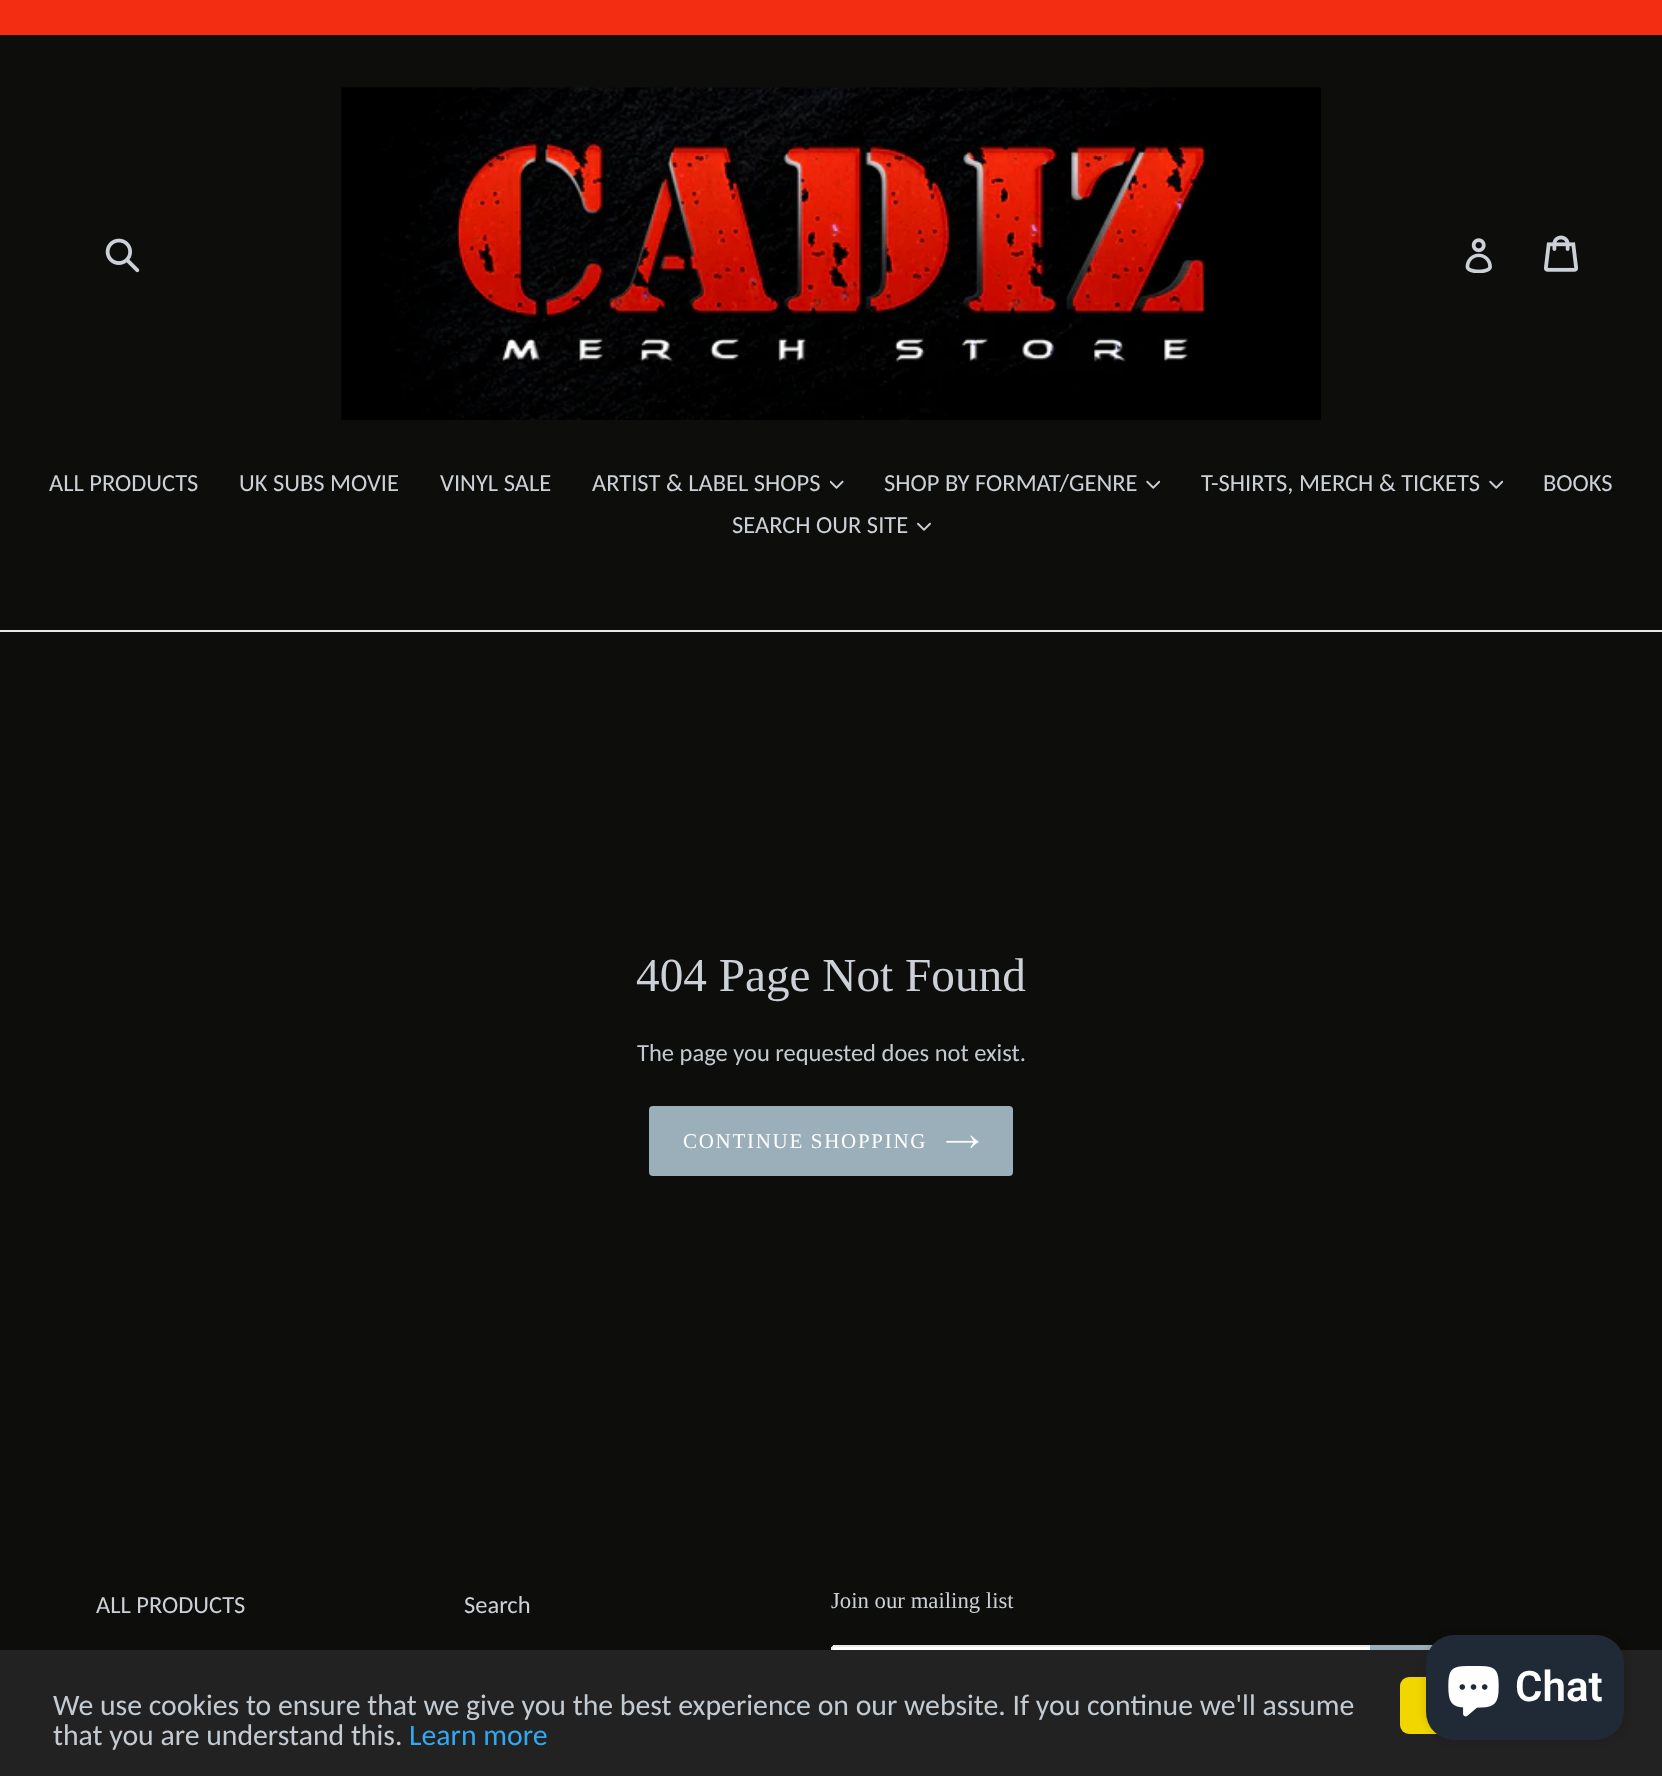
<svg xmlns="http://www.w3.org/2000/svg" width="1662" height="1776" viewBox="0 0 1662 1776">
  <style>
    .t1 { font: 24.5px Carlito; fill: #ccd1d8; }
    .t2 { font: 47.25px Liberation Serif; fill: #ccd1d8; }
    .t3 { font: 24.5px Carlito; fill: #c3cbd2; }
    .t4 { font: 21px Liberation Serif; letter-spacing: 1.7px; fill: #fff; }
    .t5 { font: 22.75px Liberation Serif; fill: #ccd1d8; }
    .t6 { font: 600 42px Roboto; fill: #fff; }
    .t7 { font: 29.75px Carlito; fill: #c3cbd2; }
    .t8 { font: 29.75px Carlito; fill: #31a8f0; }
  </style>
  <rect width="100%" height="100%" fill="#0d0d0c"/>
  <rect x="0" y="0" width="1662" height="35" fill="#f22d11"/>
  <image x="105" y="238" width="35" height="35" href="images/1.png"/>
  <image x="341" y="87" width="980" height="333" href="images/2.png"/>
  <image x="1465" y="238" width="27" height="35" href="images/3.png"/>
  <image x="1544" y="235" width="34" height="37" href="images/4.png"/>
  <rect x="0" y="630" width="1662" height="2" fill="#e8e9eb"/>
  <text x="49" y="491" class="t1">ALL PRODUCTS</text>
  <text x="239" y="491" class="t1">UK SUBS MOVIE</text>
  <text x="440" y="491" class="t1">VINYL SALE</text>
  <text x="592" y="491" class="t1">ARTIST &amp; LABEL SHOPS</text>
  <image x="830" y="480" width="14" height="9" href="images/5.png"/>
  <text x="884" y="491" class="t1">SHOP BY FORMAT/GENRE</text>
  <image x="1146" y="480" width="14" height="9" href="images/6.png"/>
  <text x="1201" y="491" class="t1">T-SHIRTS, MERCH &amp; TICKETS</text>
  <image x="1489" y="480" width="14" height="9" href="images/6.png"/>
  <text x="1543" y="491" class="t1">BOOKS</text>
  <text x="732" y="533" class="t1">SEARCH OUR SITE</text>
  <image x="917" y="522" width="14" height="9" href="images/7.png"/>
  <text x="636" y="991" class="t2">404 Page Not Found</text>
  <text x="637" y="1061" class="t3">The page you requested does not exist.</text>
  <rect x="649" y="1106" width="364" height="70" rx="4" fill="#9bafbb"/>
  <text x="683" y="1148" class="t4">CONTINUE SHOPPING</text>
  <image x="946" y="1135" width="33" height="13" href="images/8.png"/>
  <text x="96" y="1613" class="t1">ALL PRODUCTS</text>
  <text x="464" y="1613" class="t1">Search</text>
  <text x="831" y="1608" class="t5">Join our mailing list</text>
  <path d="M835 1645H1370V1726H835C833 1726 831 1724 831 1722V1649C831 1647 833 1645 835 1645Z" fill="#fff"/>
  <rect x="833" y="1645" width="537" height="2" fill="#e8e9eb"/>
  <rect x="831" y="1647" width="2" height="3" fill="#e8e9eb"/>
  <rect x="1370" y="1645" width="63" height="5" fill="#9bafbb"/>
  <rect x="0" y="1650" width="1662" height="126" fill="#222"/>
  <rect x="1400" y="1677" width="210" height="57" rx="9" fill="#f1d600"/>
  <rect x="1426" y="1635" width="198" height="105" rx="28" fill="#00000026" filter="blur(4.5px)"/>
  <rect x="1426" y="1635" width="198" height="105" rx="28" fill="#202a36"/>
  <image x="1448" y="1666" width="51" height="51" href="images/9.png"/>
  <text x="1515" y="1701" class="t6">Chat</text>
  <text x="53" y="1715" class="t7">We use cookies to ensure that we give you the best experience on our website. If you continue we'll assume</text>
  <text x="53" y="1745" class="t7">that you are understand this.</text>
  <text x="409" y="1745" class="t8">Learn more</text>
</svg>
